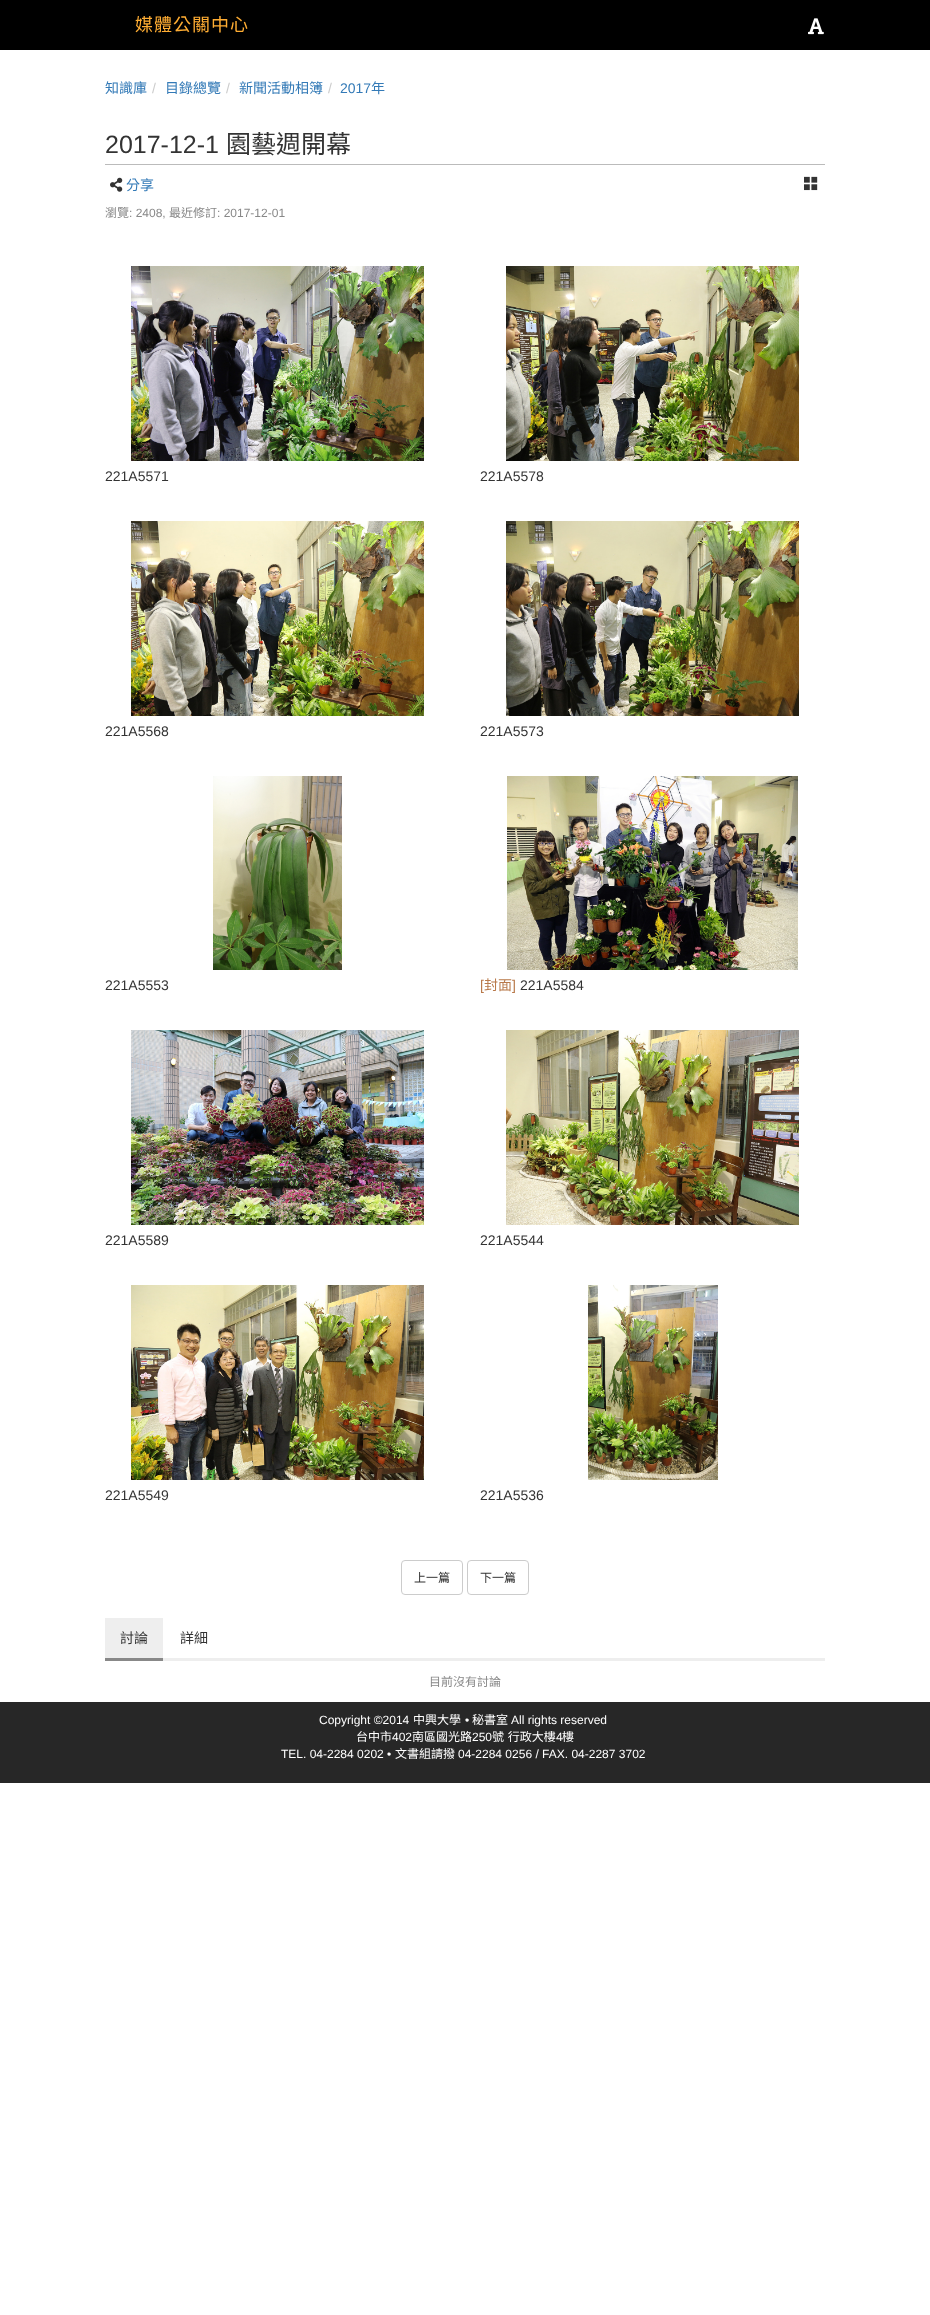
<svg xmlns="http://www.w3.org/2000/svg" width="930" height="2315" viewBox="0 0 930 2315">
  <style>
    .t1 { font: 18px Noto Sans CJK TC; letter-spacing: 1px; fill: #ffad33; }
    .t2 { font: 14px Noto Sans CJK TC; fill: #337ab7; }
    .t3 { font: 14px Liberation Sans; fill: #ccc; }
    .t4 { font: 14px Liberation Sans; fill: #337ab7; }
    .t5 { font: 25px Liberation Sans; fill: #333; }
    .t6 { font: 25px Noto Sans CJK TC; fill: #333; }
    .t7 { font: 12px Noto Sans CJK TC; fill: #888; }
    .t8 { font: 12px Liberation Sans; fill: #888; }
    .t9 { font: 14px Liberation Sans; fill: #333; }
    .t10 { font: 14px Liberation Sans; fill: #b9794a; }
    .t11 { font: 14px Noto Sans CJK TC; fill: #b9794a; }
    .t12 { font: 12px Noto Sans CJK TC; fill: #333; }
    .t13 { font: 14px Noto Sans CJK TC; fill: #333; }
    .t14 { font: 12px Liberation Sans; fill: #fff; }
    .t15 { font: 12px Noto Sans CJK TC; fill: #fff; }
  </style>
  <rect width="100%" height="100%" fill="#fff"/>
  <rect x="0" y="0" width="930" height="50" fill="#000"/>
  <text x="135" y="31" class="t1">媒體公關中心</text>
  <image x="808" y="18" width="16" height="17" href="images/1.png"/>
  <text x="105" y="93" class="t2">知識庫</text>
  <text x="152" y="93" class="t3">/</text>
  <text x="165" y="93" class="t2">目錄總覽</text>
  <text x="226" y="93" class="t3">/</text>
  <text x="239" y="93" class="t2">新聞活動相簿</text>
  <text x="328" y="93" class="t3">/</text>
  <text x="340" y="93" class="t4">2017</text>
  <text x="371" y="93" class="t2">年</text>
  <rect x="105" y="164" width="720" height="1" fill="#bbb"/>
  <text x="105" y="153" class="t5">2017-12-1</text>
  <text x="226" y="153" class="t6">園藝週開幕</text>
  <image x="110" y="177" width="13" height="15" href="images/2.png"/>
  <text x="126" y="190" class="t2">分享</text>
  <image x="804" y="176" width="14" height="15" href="images/3.png"/>
  <text x="105" y="217" class="t7">瀏覽</text>
  <text x="129" y="217" class="t8">: 2408,</text>
  <text x="169" y="217" class="t7">最近修訂</text>
  <text x="217" y="217" class="t8">: 2017-12-01</text>
  <image x="131" y="266" width="293" height="195" href="images/4.png"/>
  <text x="105" y="481" class="t9">221A5571</text>
  <image x="506" y="266" width="293" height="195" href="images/5.png"/>
  <text x="480" y="481" class="t9">221A5578</text>
  <image x="131" y="521" width="293" height="195" href="images/6.png"/>
  <text x="105" y="736" class="t9">221A5568</text>
  <image x="506" y="521" width="293" height="195" href="images/7.png"/>
  <text x="480" y="736" class="t9">221A5573</text>
  <image x="213" y="776" width="129" height="194" href="images/8.png"/>
  <text x="105" y="990" class="t9">221A5553</text>
  <image x="507" y="776" width="291" height="194" href="images/9.png"/>
  <text x="480" y="990" class="t10">[</text>
  <text x="484" y="990" class="t11">封面</text>
  <text x="512" y="990" class="t10">]</text>
  <text x="520" y="990" class="t9">221A5584</text>
  <image x="131" y="1030" width="293" height="195" href="images/10.png"/>
  <text x="105" y="1245" class="t9">221A5589</text>
  <image x="506" y="1030" width="293" height="195" href="images/11.png"/>
  <text x="480" y="1245" class="t9">221A5544</text>
  <image x="131" y="1285" width="293" height="195" href="images/12.png"/>
  <text x="105" y="1500" class="t9">221A5549</text>
  <image x="588" y="1285" width="130" height="195" href="images/13.png"/>
  <text x="480" y="1500" class="t9">221A5536</text>
  <rect x="401.5" y="1560.5" width="61" height="34" rx="3.5" fill="none" stroke="#ccc"/>
  <text x="414" y="1582" class="t12">上一篇</text>
  <rect x="467.5" y="1560.5" width="61" height="34" rx="3.5" fill="none" stroke="#ccc"/>
  <text x="480" y="1582" class="t12">下一篇</text>
  <rect x="105" y="1618" width="58" height="40" fill="#eee"/>
  <rect x="105" y="1658" width="58" height="3" fill="#888"/>
  <text x="120" y="1643" class="t13">討論</text>
  <text x="180" y="1643" class="t13">詳細</text>
  <rect x="163" y="1658" width="662" height="3" fill="#eee"/>
  <text x="429" y="1686" class="t7">目前沒有討論</text>
  <rect x="0" y="1702" width="930" height="81" fill="#272727"/>
  <text x="319" y="1724" class="t14">Copyright ©2014</text>
  <text x="413" y="1724" class="t15">中興大學</text>
  <text x="465" y="1724" class="t14">•</text>
  <text x="472" y="1724" class="t15">秘書室</text>
  <text x="511" y="1724" class="t14">All rights reserved</text>
  <text x="356" y="1741" class="t15">台中市</text>
  <text x="392" y="1741" class="t14">402</text>
  <text x="412" y="1741" class="t15">南區國光路</text>
  <text x="472" y="1741" class="t14">250</text>
  <text x="492" y="1741" word-spacing="1" class="t15">號 行政大樓</text>
  <text x="556" y="1741" class="t14">4</text>
  <text x="562" y="1741" class="t15">樓</text>
  <text x="281" y="1758" class="t14">TEL. 04-2284 0202 •</text>
  <text x="395" y="1758" class="t15">文書組請撥</text>
  <text x="458" y="1758" class="t14">04-2284 0256 / FAX. 04-2287 3702</text>
</svg>
